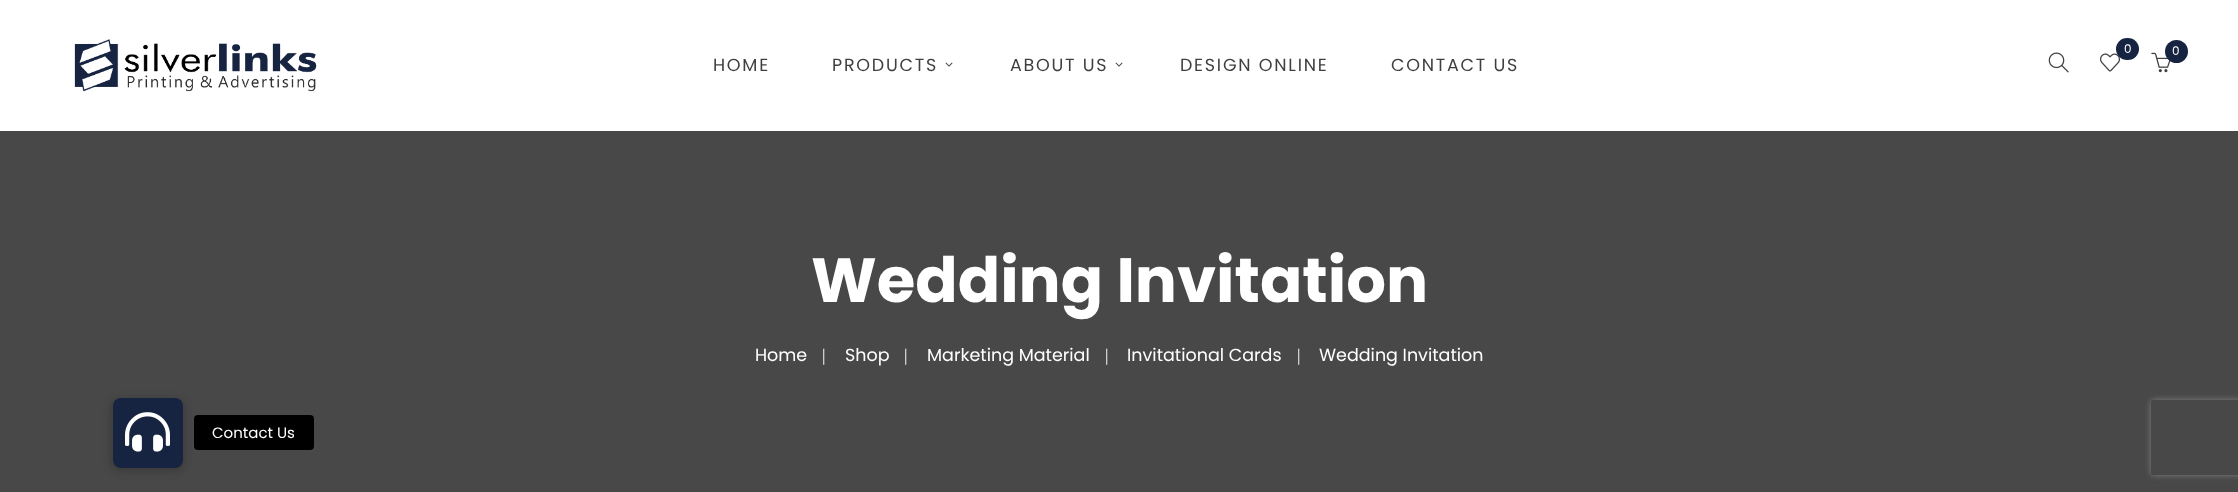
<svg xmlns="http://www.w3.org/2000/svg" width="2238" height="492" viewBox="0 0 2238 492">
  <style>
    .t1 { font: 12px Poppins; fill: #fff; }
    .t2 { font: 17.5px Poppins; letter-spacing: 1.75px; fill: #3f3f3f; }
    .t3 { font: bold 62.5px Poppins; fill: #fff; }
    .t4 { font: 17.5px Poppins; fill: #fff; }
    .t5 { font: 17.5px Liberation Serif; fill: #fff; }
    .t6 { font: 15px Poppins; fill: #fff; }
  </style>
  <defs>
    <clipPath id="clip1"><path d="M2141 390H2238V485H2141ZM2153.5 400H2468.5C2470 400 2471 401 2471 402.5V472.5C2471 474 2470 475 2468.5 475H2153.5C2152 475 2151 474 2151 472.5V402.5C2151 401 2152 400 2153.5 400Z" clip-rule="evenodd"/></clipPath>
  </defs>
  <rect width="100%" height="100%" fill="#fff"/>
  <image x="74" y="39" width="243" height="53" href="images/1.png"/>
  <image x="2100" y="53" width="20" height="19" href="images/2.png"/>
  <rect x="2116" y="38" width="23" height="22" rx="11" fill="#162441"/>
  <text x="2124" y="53" class="t1">0</text>
  <image x="2151" y="52" width="20" height="21" href="images/3.png"/>
  <circle cx="2176.5" cy="51.5" r="11.5" fill="#162441"/>
  <text x="2172" y="55" class="t1">0</text>
  <image x="2048" y="52" width="21" height="21" href="images/4.png"/>
  <text x="713" y="71" class="t2">HOME</text>
  <text x="832" y="71" class="t2">PRODUCTS</text>
  <image x="945" y="62" width="8" height="5" href="images/5.png"/>
  <text x="1010" y="71" class="t2">ABOUT US</text>
  <image x="1115" y="62" width="8" height="5" href="images/5.png"/>
  <text x="1180" y="71" class="t2">DESIGN ONLINE</text>
  <text x="1391" y="71" class="t2">CONTACT US</text>
  <rect x="0" y="131" width="2238" height="361" fill="#484848"/>
  <text x="811" y="302" class="t3">Wedding Invitation</text>
  <text x="755" y="361" class="t4">Home</text>
  <text x="822" y="361" class="t5">|</text>
  <text x="845" y="361" class="t4">Shop</text>
  <text x="904" y="361" class="t5">|</text>
  <text x="927" y="361" class="t4">Marketing Material</text>
  <text x="1105" y="361" class="t5">|</text>
  <text x="1127" y="361" class="t4">Invitational Cards</text>
  <text x="1297" y="361" class="t5">|</text>
  <text x="1319" y="361" class="t4">Wedding Invitation</text>
  <g clip-path="url(#clip1)">
    <rect x="2151" y="400" width="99" height="75" rx="2.5" fill="#808080" filter="blur(3px)"/>
  </g>
  <rect x="111" y="399" width="73" height="72" rx="9" fill="#00000033" filter="blur(4px)"/>
  <rect x="113" y="398" width="70" height="70" rx="8" fill="#162441"/>
  <image x="125" y="412" width="45" height="40" href="images/6.png"/>
  <rect x="194" y="415" width="120" height="35" rx="4" fill="#000"/>
  <text x="212" y="438" class="t6">Contact Us</text>
</svg>
